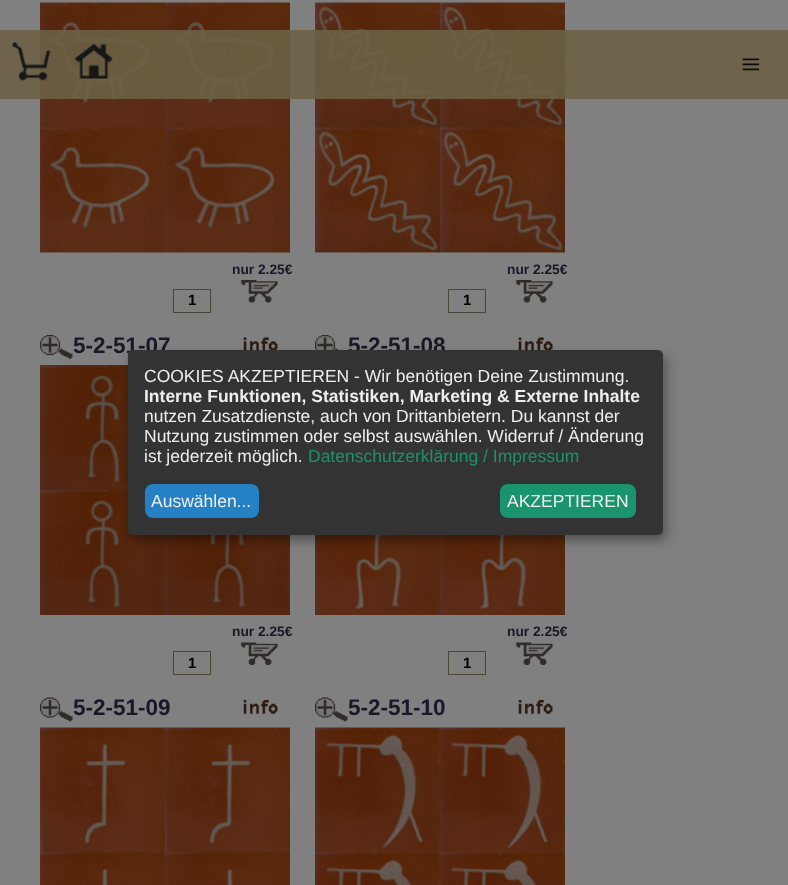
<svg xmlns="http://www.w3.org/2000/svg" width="788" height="885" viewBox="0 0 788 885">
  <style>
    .t1 { font: 35px Liberation Serif; fill: #0d0d0d; }
    .t2 { font: bold 13.75px Liberation Sans; fill: #181828; }
    .t3 { font: bold 15px Liberation Sans; fill: #000; }
    .t4 { font: bold 22.5px Liberation Sans; fill: #181828; }
    .t5 { font: 17.5px Liberation Sans; fill: #eee; }
    .t6 { font: bold 17.5px Liberation Sans; fill: #eee; }
    .t7 { font: 17.5px Liberation Sans; fill: #1a936f; }
  </style>
  <rect width="100%" height="100%" fill="#808080"/>
  <image x="40" y="2" width="250" height="251" href="images/3.png"/>
  <image x="315" y="2" width="250" height="251" href="images/5.png"/>
  <rect x="0" y="30" width="788" height="69" fill="#6c6145e6"/>
  <image x="12" y="42" width="39" height="39" href="images/1.png"/>
  <image x="74" y="43" width="39" height="36" href="images/2.png"/>
  <text x="741" y="76" class="t1">≡</text>
  <text x="232" y="274" class="t2">nur 2.25€</text>
  <rect x="173.5" y="289.5" width="37" height="23" fill="none" stroke="#4b4638"/>
  <text x="188" y="305" class="t3">1</text>
  <image x="241" y="280" width="37" height="23" href="images/4.png"/>
  <text x="507" y="274" class="t2">nur 2.25€</text>
  <rect x="448.5" y="289.5" width="37" height="23" fill="none" stroke="#4b4638"/>
  <text x="463" y="305" class="t3">1</text>
  <image x="516" y="280" width="37" height="23" href="images/6.png"/>
  <image x="40" y="335" width="33" height="24" href="images/7.png"/>
  <text x="73" y="353" class="t4">5-2-51-07</text>
  <image x="243" y="337" width="35" height="13" href="images/8.png"/>
  <image x="40" y="365" width="250" height="250" href="images/9.png"/>
  <text x="232" y="636" class="t2">nur 2.25€</text>
  <rect x="173.5" y="651.5" width="37" height="23" fill="none" stroke="#4b4638"/>
  <text x="188" y="668" class="t3">1</text>
  <image x="241" y="642" width="37" height="23" href="images/10.png"/>
  <image x="315" y="335" width="25" height="15" href="images/11.png"/>
  <text x="348" y="353" class="t4">5-2-51-08</text>
  <image x="518" y="337" width="35" height="13" href="images/12.png"/>
  <image x="315" y="535" width="250" height="80" href="images/13.png"/>
  <text x="507" y="636" class="t2">nur 2.25€</text>
  <rect x="448.5" y="651.5" width="37" height="23" fill="none" stroke="#4b4638"/>
  <text x="463" y="668" class="t3">1</text>
  <image x="516" y="642" width="37" height="23" href="images/14.png"/>
  <image x="40" y="697" width="33" height="25" href="images/15.png"/>
  <text x="73" y="715" class="t4">5-2-51-09</text>
  <image x="243" y="700" width="35" height="14" href="images/16.png"/>
  <image x="40" y="727" width="250" height="158" href="images/17.png"/>
  <image x="315" y="697" width="33" height="25" href="images/15.png"/>
  <text x="348" y="715" class="t4">5-2-51-10</text>
  <image x="518" y="700" width="35" height="14" href="images/18.png"/>
  <image x="315" y="727" width="250" height="158" href="images/19.png"/>
  <rect x="134" y="356" width="535" height="185" rx="5" fill="#00000030" filter="blur(6px)"/>
  <rect x="128" y="355" width="535" height="185" rx="5" fill="#00000033" filter="blur(4px)"/>
  <rect x="128" y="350" width="535" height="185" rx="5" fill="#333"/>
  <text x="144" y="382" class="t5">COOKIES AKZEPTIEREN - Wir benötigen Deine Zustimmung.</text>
  <text x="144" y="402" class="t6">Interne Funktionen, Statistiken, Marketing &amp; Externe Inhalte</text>
  <text x="144" y="422" class="t5">nutzen Zusatzdienste, auch von Drittanbietern. Du kannst der</text>
  <text x="144" y="442" class="t5">Nutzung zustimmen oder selbst auswählen. Widerruf / Änderung</text>
  <text x="144" y="462" class="t5">ist jederzeit möglich.</text>
  <text x="308" y="462" class="t7">Datenschutzerklärung / Impressum</text>
  <rect x="145" y="484" width="114" height="34" rx="8" fill="#2581c4"/>
  <text x="151" y="507" class="t5">Auswählen...</text>
  <rect x="500" y="484" width="136" height="34" rx="8" fill="#1a936f"/>
  <text x="507" y="507" class="t5">AKZEPTIEREN</text>
</svg>
